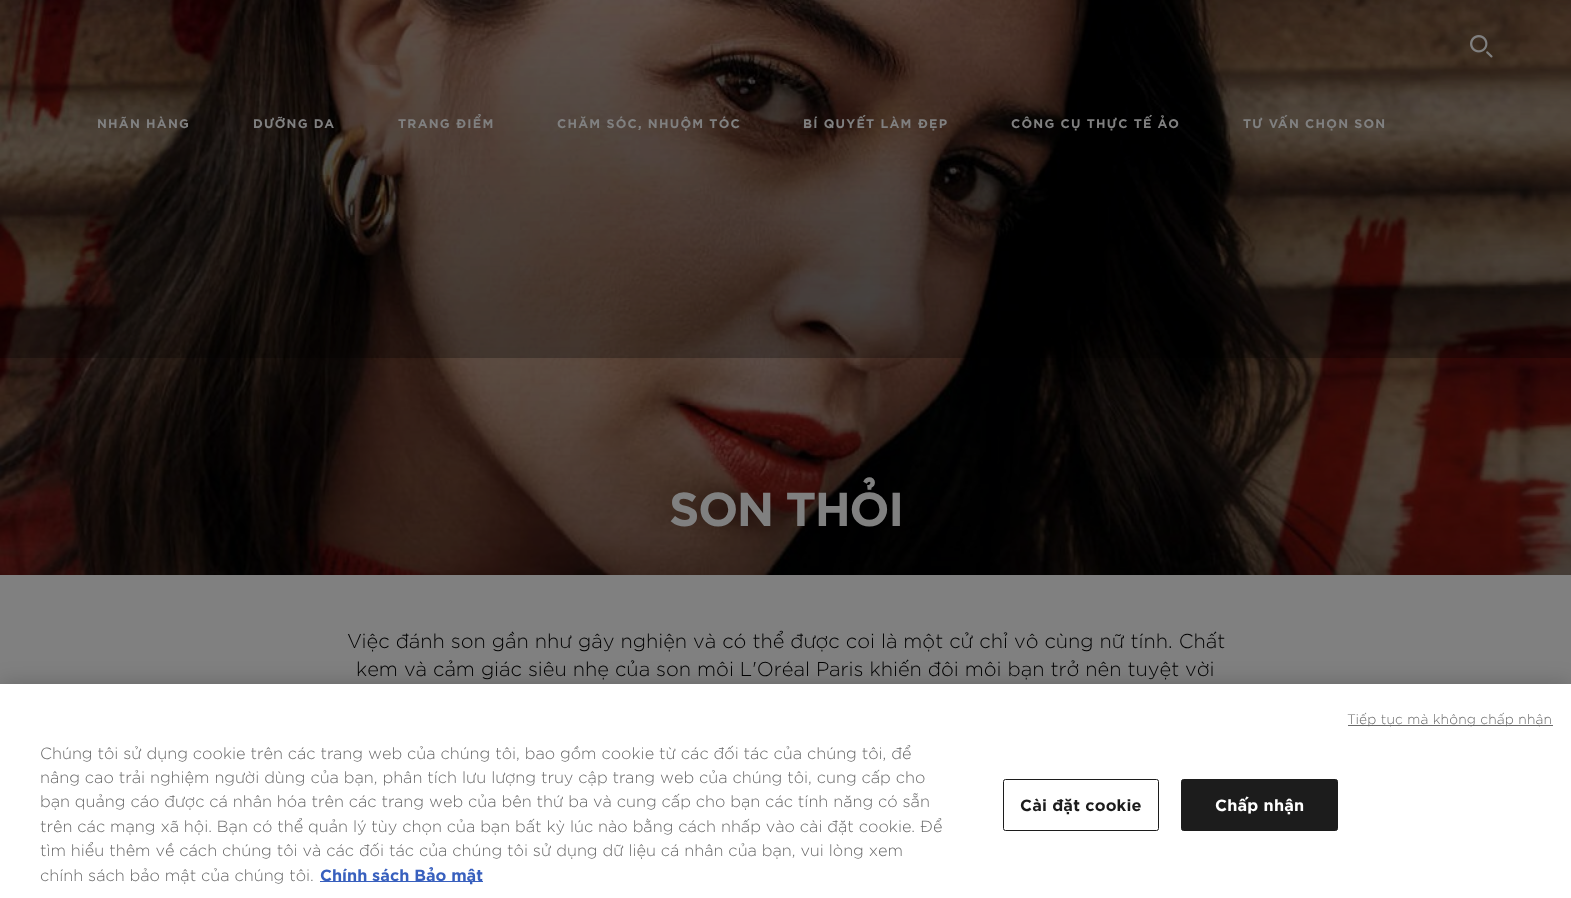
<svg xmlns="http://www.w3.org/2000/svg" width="1571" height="898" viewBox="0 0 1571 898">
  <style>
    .t1 { font: bold 12.5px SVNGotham; letter-spacing: 1.25px; fill: #808080; }
    .t2 { font: bold 47.5px SVNGotham; letter-spacing: -1.5px; fill: #808080; }
    .t3 { font: 300 20px SVNGotham; fill: #000; }
    .t4 { font: 300 13.75px SVNGotham; letter-spacing: 0.15px; fill: #696969; }
    .t5 { font: 300 16.25px SVNGotham; fill: #696969; }
    .t6 { font: bold 16.25px SVNGotham; fill: #3860be; }
    .t7 { font: bold 16.25px SVNGotham; letter-spacing: 0.2px; fill: #1c1c1c; }
    .t8 { font: bold 16.25px SVNGotham; letter-spacing: 0.2px; fill: #fff; }
  </style>
  <rect width="100%" height="100%" fill="#808080"/>
  <image x="0" y="0" width="1571" height="575" href="images/2.png"/>
  <rect x="0" y="0" width="1571" height="358" fill="#00000045"/>
  <image x="1470" y="35" width="23" height="23" href="images/1.png"/>
  <text x="97" y="128" class="t1">NHÃN HÀNG</text>
  <text x="253" y="128" class="t1">DƯỠNG DA</text>
  <text x="398" y="128" class="t1">TRANG ĐIỂM</text>
  <text x="557" y="128" class="t1">CHĂM SÓC, NHUỘM TÓC</text>
  <text x="803" y="128" class="t1">BÍ QUYẾT LÀM ĐẸP</text>
  <text x="1011" y="128" class="t1">CÔNG CỤ THỰC TẾ ẢO</text>
  <text x="1243" y="128" class="t1">TƯ VẤN CHỌN SON</text>
  <text x="669" y="526" class="t2">SON THỎI</text>
  <text x="347" y="648" class="t3">Việc đánh son gần như gây nghiện và có thể được coi là một cử chỉ vô cùng nữ tính. Chất</text>
  <text x="356" y="676" class="t3">kem và cảm giác siêu nhẹ của son môi L'Oréal Paris khiến đôi môi bạn trở nên tuyệt vời</text>
  <rect x="0" y="684" width="1571" height="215" fill="#00000033" filter="blur(11px)"/>
  <rect x="0" y="684" width="1571" height="214" fill="#fff"/>
  <rect x="1348" y="725" width="205" height="1" fill="#696969"/>
  <text x="1347" y="724" class="t4">Tiếp tục mà không chấp nhận</text>
  <text x="40" y="759" class="t5">Chúng tôi sử dụng cookie trên các trang web của chúng tôi, bao gồm cookie từ các đối tác của chúng tôi, để</text>
  <text x="40" y="783" class="t5">nâng cao trải nghiệm người dùng của bạn, phân tích lưu lượng truy cập trang web của chúng tôi, cung cấp cho</text>
  <text x="40" y="807" class="t5">bạn quảng cáo được cá nhân hóa trên các trang web của bên thứ ba và cung cấp cho bạn các tính năng có sẵn</text>
  <text x="40" y="832" class="t5">trên các mạng xã hội. Bạn có thể quản lý tùy chọn của bạn bất kỳ lúc nào bằng cách nhấp vào cài đặt cookie. Để</text>
  <text x="40" y="856" class="t5">tìm hiểu thêm về cách chúng tôi và các đối tác của chúng tôi sử dụng dữ liệu cá nhân của bạn, vui lòng xem</text>
  <text x="40" y="881" class="t5">chính sách bảo mật của chúng tôi.</text>
  <rect x="320" y="881" width="163" height="1" fill="#3860be"/>
  <text x="320" y="881" class="t6">Chính sách Bảo mật</text>
  <rect x="1003.5" y="779.5" width="155" height="51" rx="2" fill="none" stroke="#1c1c1c"/>
  <text x="1020" y="811" class="t7">Cài đặt cookie</text>
  <rect x="1181.5" y="779.5" width="156" height="51" rx="2" fill="#1c1c1c" stroke="#1c1c1c"/>
  <text x="1215" y="811" class="t8">Chấp nhận</text>
</svg>
